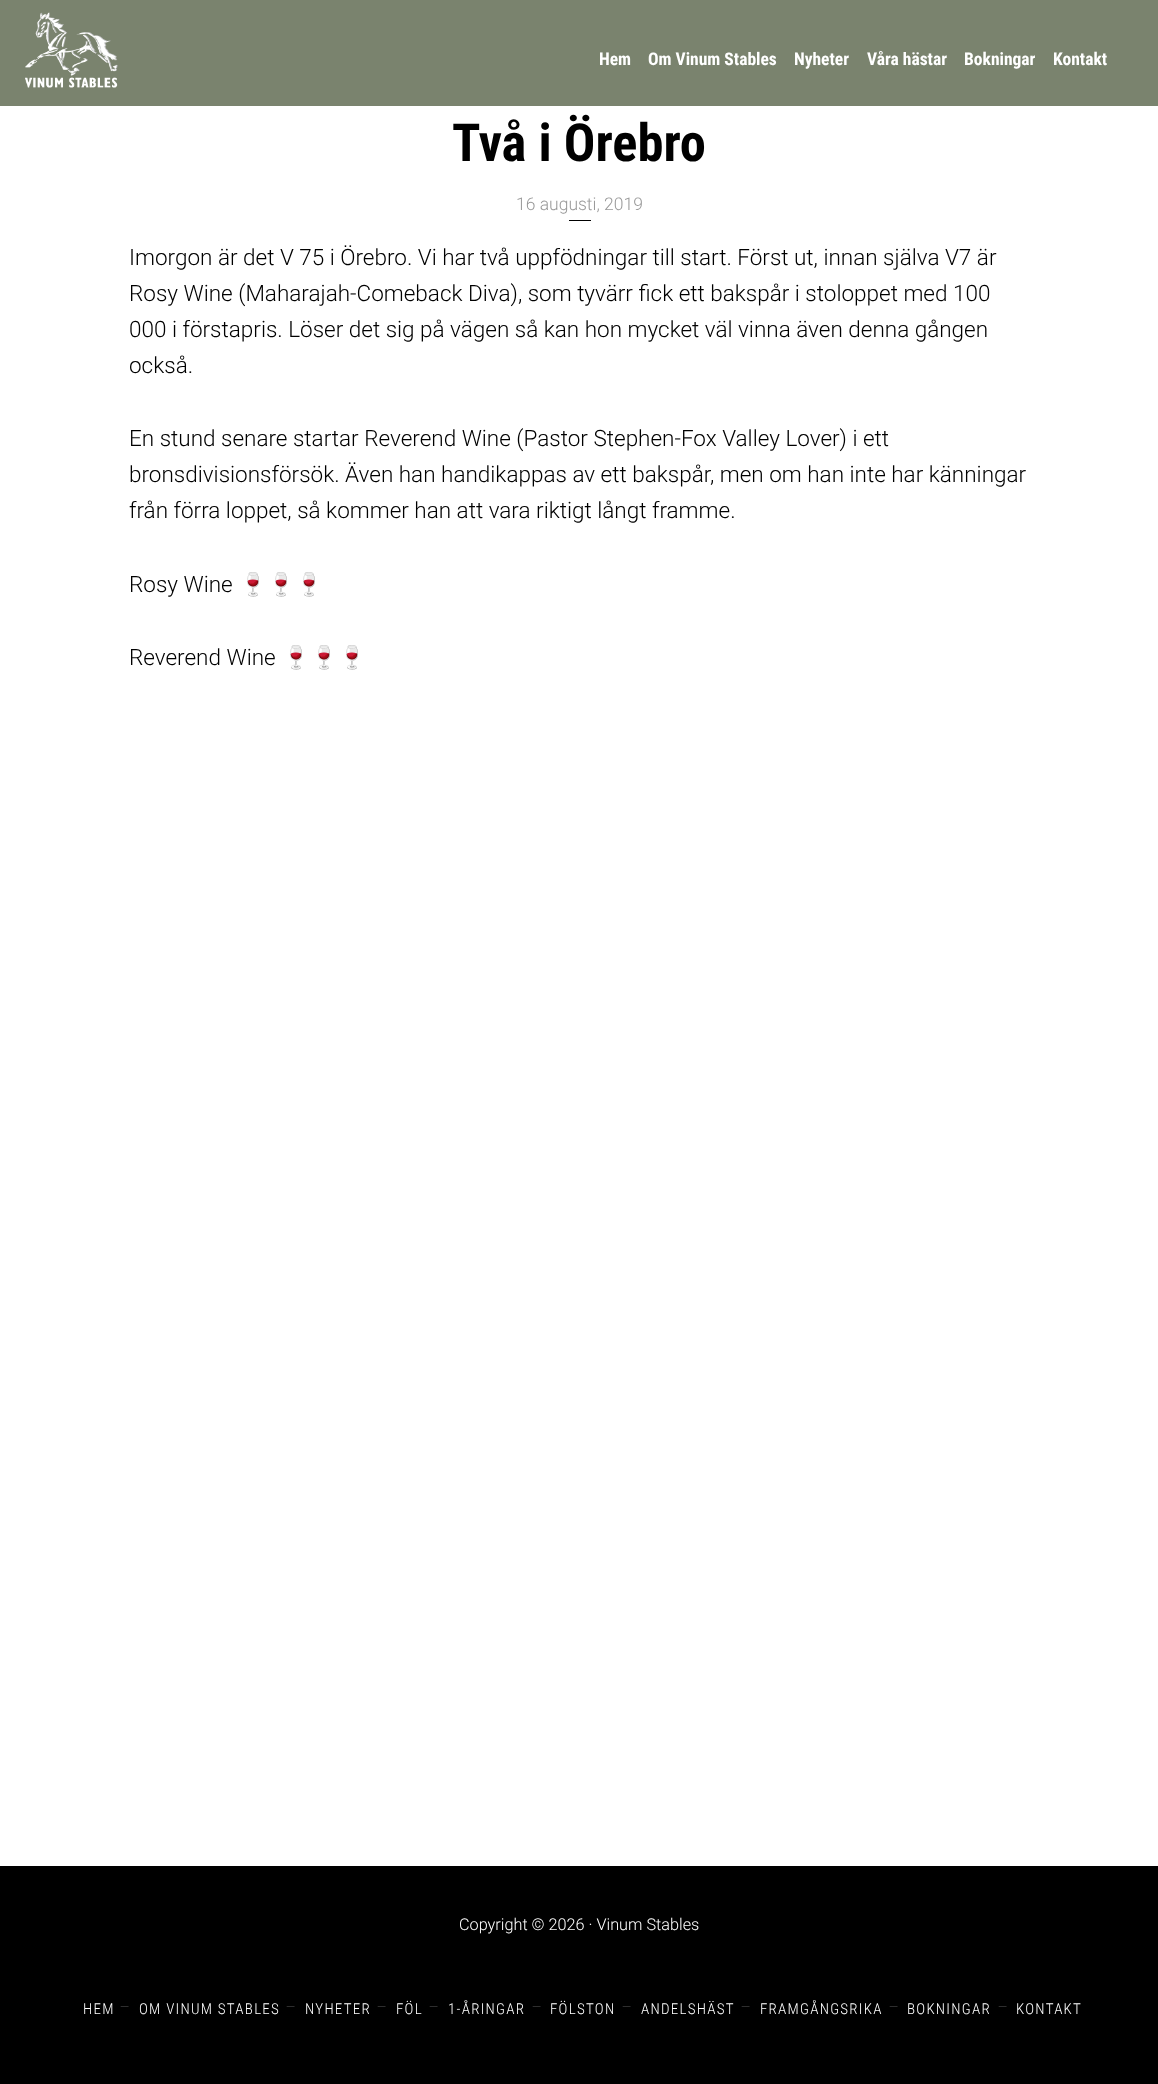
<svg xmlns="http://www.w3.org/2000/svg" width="1158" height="2084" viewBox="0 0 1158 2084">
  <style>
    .t1 { font: bold 17.5px Roboto Condensed; fill: #fff; }
    .t2 { font: bold 52.5px Roboto Condensed; fill: #000; }
    .t3 { font: 300 17.5px Roboto; fill: #999; }
    .t4 { font: 300 22.5px Roboto; fill: #000; }
    .t5 { font: 22.5px Noto Color Emoji; fill: #000; }
    .t6 { font: 300 16.25px Roboto; fill: #fff; }
    .t7 { font: 300 15px Roboto Condensed; letter-spacing: 1.25px; fill: #fff; }
    .t8 { font: 200 12px Roboto; fill: #666; }
  </style>
  <rect width="100%" height="100%" fill="#fff"/>
  <rect x="0" y="0" width="1158" height="106" fill="#7a836e"/>
  <image x="25" y="12" width="93" height="76" href="images/1.png"/>
  <text x="599" y="65" class="t1">Hem</text>
  <text x="648" y="65" class="t1">Om Vinum Stables</text>
  <text x="794" y="65" class="t1">Nyheter</text>
  <text x="867" y="65" class="t1">Våra hästar</text>
  <text x="964" y="65" class="t1">Bokningar</text>
  <text x="1053" y="65" class="t1">Kontakt</text>
  <text x="452" y="161" class="t2">Två i Örebro</text>
  <text x="516" y="210" class="t3">16 augusti, 2019</text>
  <rect x="569" y="220" width="22" height="1" fill="#000"/>
  <text x="129" y="265" class="t4">Imorgon är det V 75 i Örebro. Vi har två uppfödningar till start. Först ut, innan själva V7 är</text>
  <text x="129" y="301" class="t4">Rosy Wine (Maharajah-Comeback Diva), som tyvärr fick ett bakspår i stoloppet med 100</text>
  <text x="129" y="337" class="t4">000 i förstapris. Löser det sig på vägen så kan hon mycket väl vinna även denna gången</text>
  <text x="129" y="373" class="t4">också.</text>
  <text x="129" y="446" class="t4">En stund senare startar Reverend Wine (Pastor Stephen-Fox Valley Lover) i ett</text>
  <text x="129" y="482" class="t4">bronsdivisionsförsök. Även han handikappas av ett bakspår, men om han inte har känningar</text>
  <text x="129" y="518" class="t4">från förra loppet, så kommer han att vara riktigt långt framme.</text>
  <text x="129" y="592" class="t4">Rosy Wine</text>
  <text x="239" y="592" class="t5">🍷🍷🍷</text>
  <text x="129" y="665" class="t4">Reverend Wine</text>
  <text x="282" y="665" class="t5">🍷🍷🍷</text>
  <rect x="0" y="1866" width="1158" height="218" fill="#000"/>
  <text x="459" y="1930" class="t6">Copyright © 2026 · Vinum Stables</text>
  <text x="83" y="2014" class="t7">HEM</text>
  <text x="120" y="2011" class="t8">—</text>
  <text x="139" y="2014" class="t7">OM VINUM STABLES</text>
  <text x="286" y="2011" class="t8">—</text>
  <text x="305" y="2014" class="t7">NYHETER</text>
  <text x="377" y="2011" class="t8">—</text>
  <text x="396" y="2014" class="t7">FÖL</text>
  <text x="429" y="2011" class="t8">—</text>
  <text x="448" y="2014" class="t7">1-ÅRINGAR</text>
  <text x="532" y="2011" class="t8">—</text>
  <text x="550" y="2014" class="t7">FÖLSTON</text>
  <text x="622" y="2011" class="t8">—</text>
  <text x="641" y="2014" class="t7">ANDELSHÄST</text>
  <text x="741" y="2011" class="t8">—</text>
  <text x="760" y="2014" class="t7">FRAMGÅNGSRIKA</text>
  <text x="889" y="2011" class="t8">—</text>
  <text x="907" y="2014" class="t7">BOKNINGAR</text>
  <text x="998" y="2011" class="t8">—</text>
  <text x="1016" y="2014" class="t7">KONTAKT</text>
</svg>
